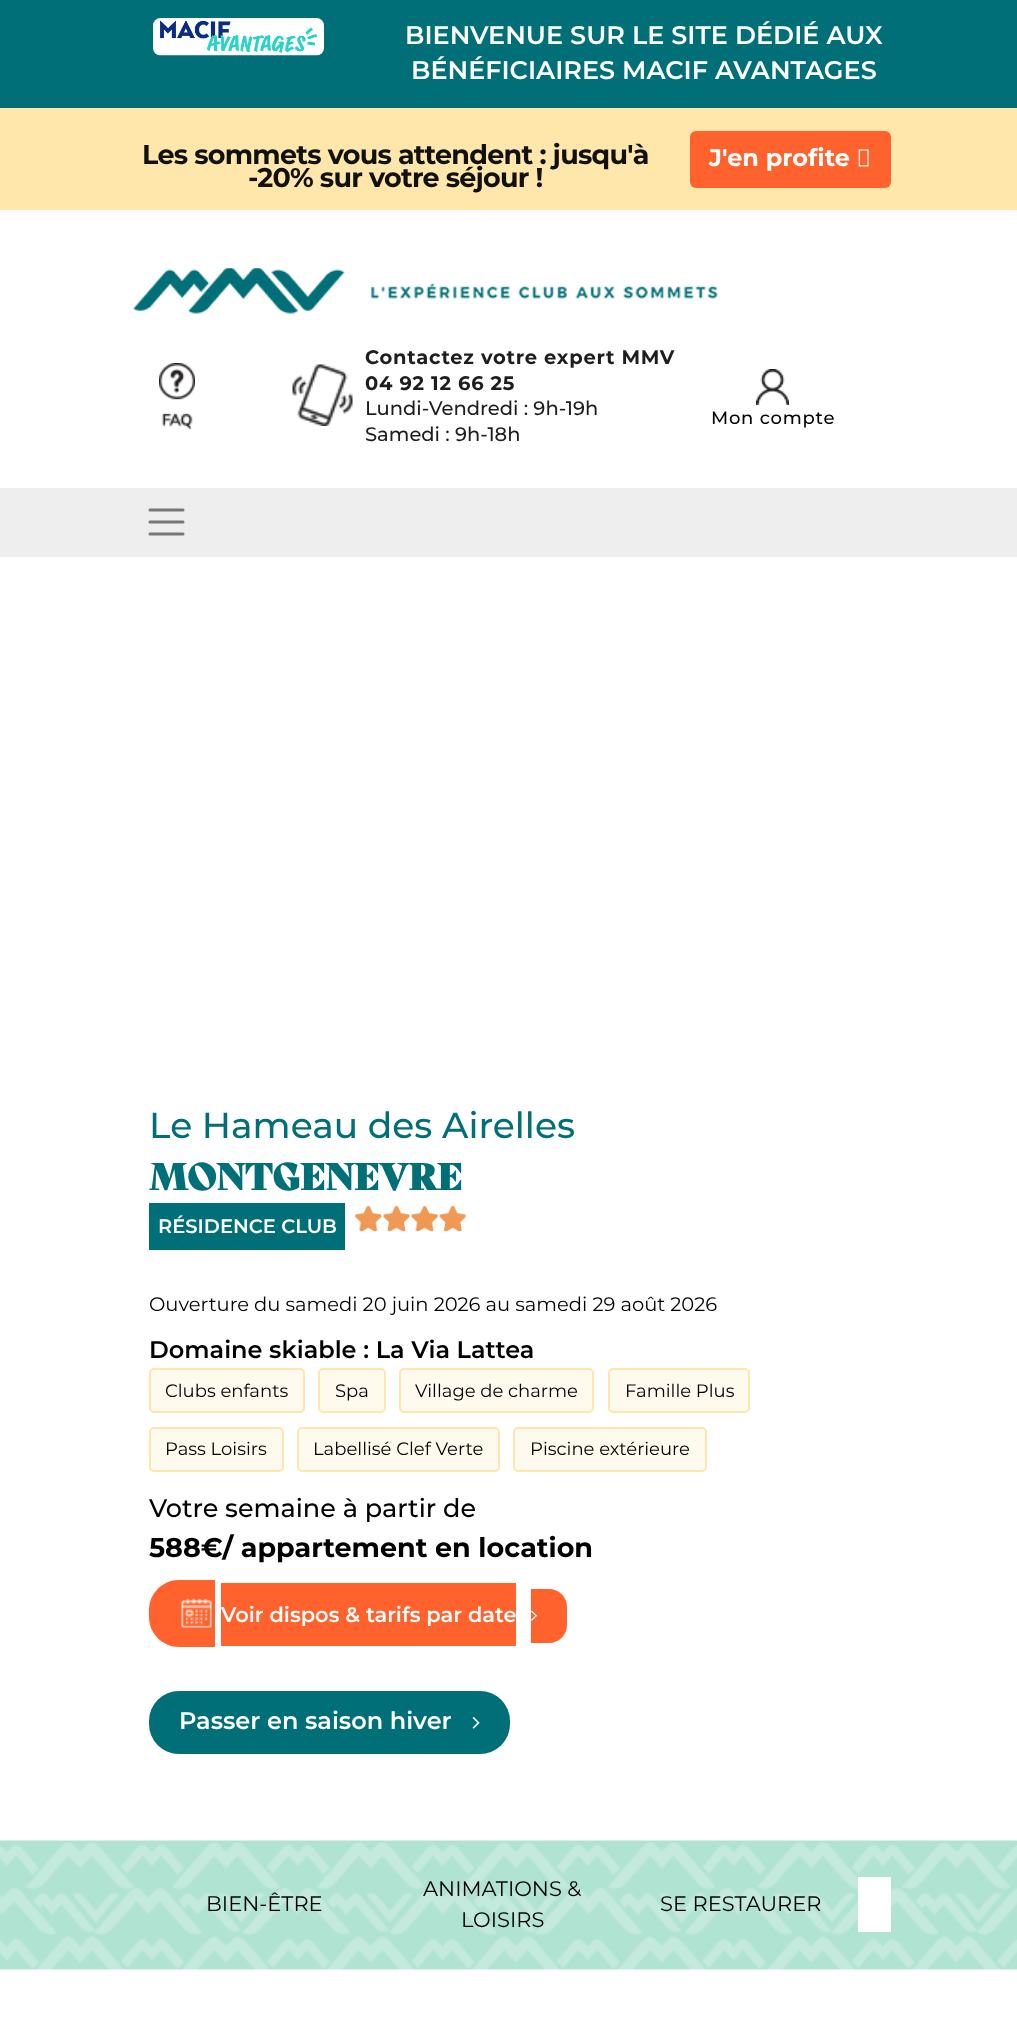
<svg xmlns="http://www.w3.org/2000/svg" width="1017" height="2027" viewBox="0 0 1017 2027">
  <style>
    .t1 { font: 600 25.5px Montserrat; fill: #fff; }
    .t2 { font: bold 27px Montserrat; letter-spacing: -0.75px; fill: #111; }
    .t3 { font: bold 24px Montserrat; fill: #fff; }
    .t4 { font: bold 19.5px Montserrat; letter-spacing: 0.75px; fill: #1e1e1e; }
    .t5 { font: 500 19.5px Montserrat; fill: #1e1e1e; }
    .t6 { font: 500 18px Montserrat; letter-spacing: 0.75px; fill: #000; }
    .t7 { font: 500 36px Montserrat; fill: #006f77; }
    .t8 { font: bold 36px 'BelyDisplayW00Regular'; fill: #006f77; }
    .t9 { font: 600 19.5px Montserrat; fill: #fff; }
    .t10 { font: 19.5px Montserrat; fill: #000; }
    .t11 { font: 600 24px Montserrat; fill: #000; }
    .t12 { font: 18px Montserrat; fill: #000; }
    .t13 { font: 500 25.5px Montserrat; fill: #000; }
    .t14 { font: bold 27px Montserrat; fill: #000; }
    .t15 { font: 600 21px Montserrat; fill: #fff; }
    .t16 { font: 600 24px Montserrat; fill: #fff; }
    .t17 { font: 21px Montserrat; fill: #000; }
  </style>
  <rect width="100%" height="100%" fill="#fff"/>
  <rect x="0" y="0" width="1017" height="108" fill="#006f77"/>
  <image x="153" y="18" width="171" height="38" href="images/1.png"/>
  <text x="405" y="44" class="t1">BIENVENUE SUR LE SITE DÉDIÉ AUX</text>
  <text x="411" y="79" class="t1">BÉNÉFICIAIRES MACIF AVANTAGES</text>
  <rect x="0" y="108" width="1017" height="102" fill="#ffe6aa"/>
  <text x="142" y="164" class="t2">Les sommets vous attendent : jusqu'à</text>
  <text x="248" y="187" class="t2">-20% sur votre séjour !</text>
  <rect x="690" y="131" width="201" height="57" rx="6" fill="#ff622c"/>
  <text x="709" y="166" class="t3">J'en profite</text>
  <image x="858" y="149" width="11" height="18" href="images/2.png"/>
  <image x="133" y="268" width="585" height="46" href="images/3.png"/>
  <image x="159" y="363" width="36" height="66" href="images/4.png"/>
  <image x="292" y="364" width="61" height="62" href="images/5.png"/>
  <text x="365" y="364" class="t4">Contactez votre expert MMV</text>
  <text x="365" y="390" class="t4">04 92 12 66 25</text>
  <text x="365" y="415" class="t5">Lundi-Vendredi : 9h-19h</text>
  <text x="365" y="441" class="t5">Samedi : 9h-18h</text>
  <image x="756" y="369" width="33" height="36" href="images/6.png"/>
  <text x="711" y="424" class="t6">Mon compte</text>
  <rect x="0" y="488" width="1017" height="69" fill="#eee"/>
  <path d="M150 510H183M150 522H183M150 534H183" fill="none" stroke="#777" stroke-width="3" stroke-linecap="round"/>
  <text x="149" y="1138" class="t7">Le Hameau des Airelles</text>
  <text x="149" y="1190" class="t8">MONTGENEVRE</text>
  <rect x="149" y="1203" width="196" height="47" fill="#006f77"/>
  <text x="158" y="1233" class="t9">RÉSIDENCE CLUB</text>
  <image x="355" y="1205" width="112" height="27" href="images/7.png"/>
  <text x="149" y="1311" class="t10">Ouverture du samedi 20 juin 2026 au samedi 29 août 2026</text>
  <text x="149" y="1358" class="t11">Domaine skiable : La Via Lattea</text>
  <rect x="150" y="1369" width="154" height="43" rx="4" fill="#fefaee" stroke="#ffe6aa" stroke-width="2"/>
  <text x="165" y="1397" class="t12">Clubs enfants</text>
  <rect x="319" y="1369" width="66" height="43" rx="4" fill="#fefaee" stroke="#ffe6aa" stroke-width="2"/>
  <text x="335" y="1397" class="t12">Spa</text>
  <rect x="400" y="1369" width="193" height="43" rx="4" fill="#fefaee" stroke="#ffe6aa" stroke-width="2"/>
  <text x="415" y="1397" class="t12">Village de charme</text>
  <rect x="609" y="1369" width="140" height="43" rx="4" fill="#fefaee" stroke="#ffe6aa" stroke-width="2"/>
  <text x="625" y="1397" class="t12">Famille Plus</text>
  <rect x="150" y="1428" width="133" height="43" rx="4" fill="#fefaee" stroke="#ffe6aa" stroke-width="2"/>
  <text x="165" y="1455" class="t12">Pass Loisirs</text>
  <rect x="298" y="1428" width="201" height="43" rx="4" fill="#fefaee" stroke="#ffe6aa" stroke-width="2"/>
  <text x="313" y="1455" class="t12">Labellisé Clef Verte</text>
  <rect x="514" y="1428" width="192" height="43" rx="4" fill="#fefaee" stroke="#ffe6aa" stroke-width="2"/>
  <text x="530" y="1455" class="t12">Piscine extérieure</text>
  <text x="149" y="1517" class="t13">Votre semaine à partir de</text>
  <text x="149" y="1557" class="t14">588€/ appartement en location</text>
  <path d="M179 1580H215V1647H179C162.5 1647 149 1633.5 149 1617V1610C149 1593.5 162.5 1580 179 1580Z" fill="#ff622c"/>
  <image x="181" y="1598" width="31" height="30" href="images/8.png"/>
  <rect x="221" y="1583" width="295" height="63" fill="#ff622c"/>
  <text x="221" y="1622" class="t15">Voir dispos &amp; tarifs par date</text>
  <path d="M531 1589H549C559 1589 567 1597 567 1607V1625C567 1635 559 1643 549 1643H531Z" fill="#ff622c"/>
  <image x="531" y="1610" width="6" height="11" href="images/9.png"/>
  <rect x="149" y="1691" width="361" height="63" rx="30" fill="#006f77"/>
  <text x="179" y="1729" class="t16">Passer en saison hiver</text>
  <image x="472" y="1717" width="8" height="12" href="images/10.png"/>
  <image x="0" y="1840" width="1017" height="130" href="images/11.png"/>
  <text x="206" y="1911" class="t17">BIEN-ÊTRE</text>
  <text x="423" y="1896" class="t17">ANIMATIONS &amp;</text>
  <text x="461" y="1927" class="t17">LOISIRS</text>
  <text x="660" y="1911" class="t17">SE RESTAURER</text>
  <rect x="858" y="1877" width="33" height="55" fill="#fff"/>
</svg>
